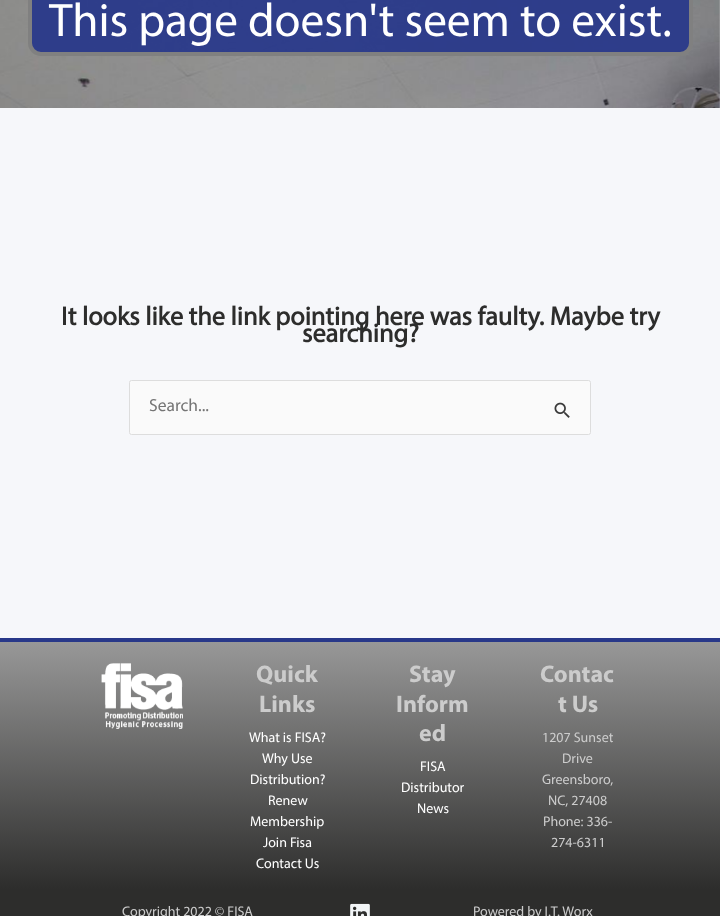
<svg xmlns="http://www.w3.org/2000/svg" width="720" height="916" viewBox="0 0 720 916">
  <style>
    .t1 { font: 47.25px Myriad; fill: #fff; }
    .t2 { font: bold 26.25px Myriad; fill: #2d2d2c; }
    .t3 { font: 17.5px Myriad; fill: #757575; }
    .t4 { font: bold 24px 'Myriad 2'; fill: #ccc; }
    .t5 { font: 14px Myriad; fill: #fff; }
    .t6 { font: 14px Myriad; fill: #ccc; }
  </style>
  <defs>
    <linearGradient id="g1" gradientUnits="userSpaceOnUse" x1="360" y1="641" x2="360" y2="889"><stop offset="0" stop-color="#989898"/><stop offset="1" stop-color="#2d2d2c"/></linearGradient>
  </defs>
  <rect width="100%" height="100%" fill="#fff"/>
  <image x="0" y="0" width="720" height="108" href="images/1.png"/>
  <rect x="30" y="-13" width="661" height="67" rx="11" fill="#28388af0" stroke="#808080" stroke-width="4"/>
  <text x="49" y="36" class="t1">This page doesn't seem to exist.</text>
  <rect x="0" y="108" width="720" height="530" fill="#f6f7fa"/>
  <text x="61" y="325" class="t2">It looks like the link pointing here was faulty. Maybe try</text>
  <text x="302" y="342" class="t2">searching?</text>
  <rect x="129.5" y="380.5" width="461" height="54" rx="2" fill="#fafafa" stroke="#ddd"/>
  <text x="149" y="411" class="t3">Search...</text>
  <image x="554" y="402" width="16" height="16" href="images/2.png"/>
  <rect x="0" y="642" width="720" height="247" fill="url(#g1)"/>
  <rect x="0" y="638" width="720" height="4" fill="#283889"/>
  <image x="101" y="663" width="82" height="66" href="images/3.png"/>
  <text x="256" y="682" class="t4">Quick</text>
  <text x="259" y="712" class="t4">Links</text>
  <text x="249" y="742" class="t5">What is FISA?</text>
  <text x="262" y="763" class="t5">Why Use</text>
  <text x="250" y="784" class="t5">Distribution?</text>
  <text x="268" y="805" class="t5">Renew</text>
  <text x="250" y="826" class="t5">Membership</text>
  <text x="263" y="847" class="t5">Join Fisa</text>
  <text x="256" y="868" class="t5">Contact Us</text>
  <text x="409" y="682" class="t4">Stay</text>
  <text x="396" y="712" class="t4">Inform</text>
  <text x="419" y="741" class="t4">ed</text>
  <text x="420" y="771" class="t5">FISA</text>
  <text x="401" y="792" class="t5">Distributor</text>
  <text x="417" y="813" class="t5">News</text>
  <text x="540" y="682" class="t4">Contac</text>
  <text x="558" y="712" class="t4">t Us</text>
  <text x="542" y="742" class="t6">1207 Sunset</text>
  <text x="562" y="763" class="t6">Drive</text>
  <text x="542" y="784" class="t6">Greensboro,</text>
  <text x="548" y="805" class="t6">NC, 27408</text>
  <text x="543" y="826" class="t6">Phone: 336-</text>
  <text x="551" y="847" class="t6">274-6311</text>
  <rect x="0" y="889" width="720" height="27" fill="#2d2d2c"/>
  <text x="122" y="916" class="t6">Copyright 2022 © FISA</text>
  <image x="350" y="903" width="20" height="13" href="images/4.png"/>
  <text x="473" y="916" class="t6">Powered by I.T. Worx</text>
</svg>
